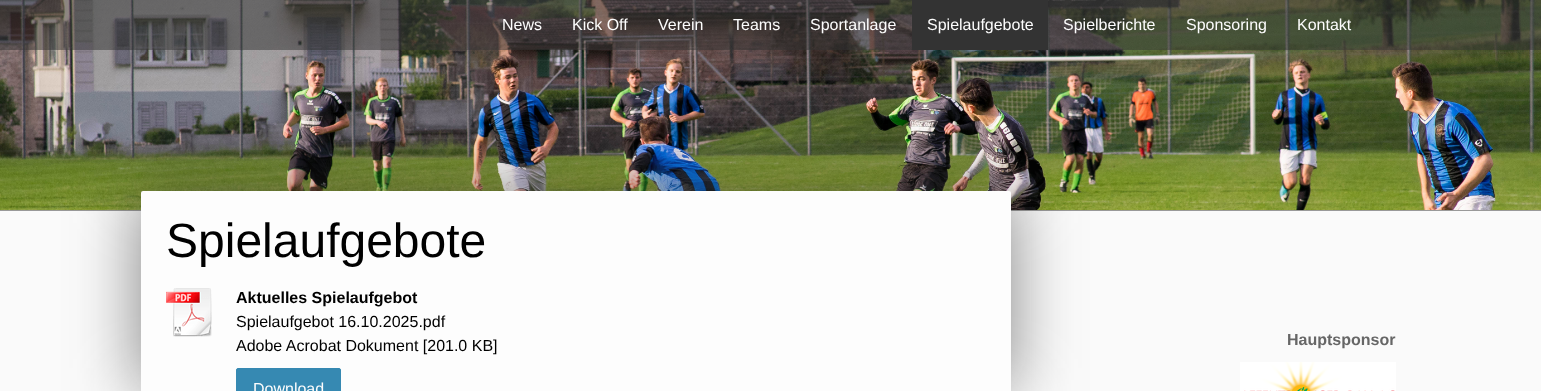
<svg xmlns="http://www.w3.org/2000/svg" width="1541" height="391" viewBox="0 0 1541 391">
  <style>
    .t1 { font: 16px Liberation Sans; fill: #fdfdfd; }
    .t2 { font: 48px Liberation Sans; fill: #000; }
    .t3 { font: bold 16px Liberation Sans; fill: #000; }
    .t4 { font: 16px Liberation Sans; fill: #000; }
    .t5 { font: bold 16px Liberation Sans; fill: #666; }
  </style>
  <rect width="100%" height="100%" fill="#fafafa"/>
  <image x="0" y="0" width="1541" height="210" href="images/1.png"/>
  <rect x="0" y="0" width="1541" height="50" fill="#33333380"/>
  <text x="502" y="30" class="t1">News</text>
  <text x="572" y="30" class="t1">Kick Off</text>
  <text x="658" y="30" class="t1">Verein</text>
  <text x="733" y="30" class="t1">Teams</text>
  <text x="810" y="30" class="t1">Sportanlage</text>
  <rect x="912" y="0" width="136" height="50" fill="#333"/>
  <text x="927" y="30" class="t1">Spielaufgebote</text>
  <text x="1063" y="30" class="t1">Spielberichte</text>
  <text x="1186" y="30" class="t1">Sponsoring</text>
  <text x="1297" y="30" class="t1">Kontakt</text>
  <rect x="0" y="210" width="1541" height="1" fill="#999"/>
  <rect x="140" y="191" width="871" height="200" fill="#33333399" filter="blur(34px)"/>
  <rect x="141" y="191" width="870" height="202" rx="2" fill="#fdfdfd"/>
  <text x="166" y="257" class="t2">Spielaufgebote</text>
  <image x="166" y="288" width="46" height="49" href="images/2.png"/>
  <text x="236" y="303" class="t3">Aktuelles Spielaufgebot</text>
  <text x="236" y="327" class="t4">Spielaufgebot 16.10.2025.pdf</text>
  <text x="236" y="351" class="t4">Adobe Acrobat Dokument [201.0 KB]</text>
  <rect x="236.5" y="368.5" width="104" height="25" rx="1.5" fill="#3689b2" stroke="#3689b2"/>
  <text x="253" y="394" class="t1">Download</text>
  <text x="1287" y="345" class="t5">Hauptsponsor</text>
  <image x="1240" y="362" width="156" height="29" href="images/3.png"/>
</svg>
